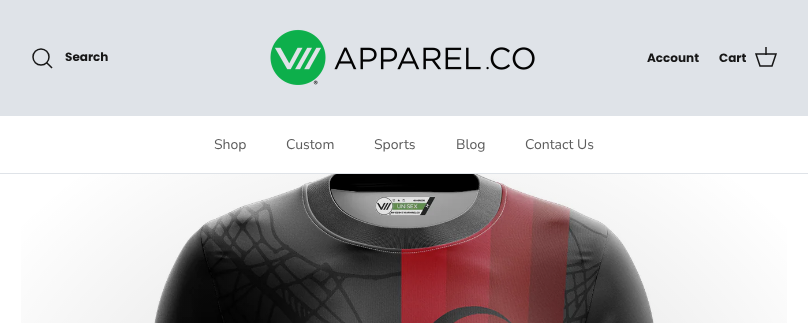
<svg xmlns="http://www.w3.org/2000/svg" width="808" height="323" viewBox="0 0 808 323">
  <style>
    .t1 { font: bold 12px Poppins; fill: #171717; }
    .t2 { font: 14px Nunito Sans; fill: #5c5c5c; }
  </style>
  <defs>
    <radialGradient id="g1" gradientUnits="userSpaceOnUse" cx="0" cy="0" r="1" gradientTransform="matrix(713 0 0 602 404 490)"><stop offset="0" stop-color="#000" stop-opacity="0.16"/><stop offset="0.7" stop-color="#000" stop-opacity="0"/></radialGradient>
  </defs>
  <rect width="100%" height="100%" fill="#fff"/>
  <rect x="0" y="0" width="808" height="116" fill="#dfe3e8"/>
  <circle cx="41" cy="57" r="8" fill="none" stroke="#171717" stroke-width="1.5"/>
  <text x="65" y="61" class="t1">Search</text>
  <path d="M47 63L51.5 67.5" fill="none" stroke="#171717" stroke-width="1.5" stroke-linecap="square"/>
  <image x="270" y="29" width="265" height="56" href="images/1.png"/>
  <text x="647" y="62" class="t1">Account</text>
  <text x="719" y="62" class="t1">Cart</text>
  <path d="M756 54H776L772 66H760Z" fill="none" stroke="#171717" stroke-width="1.5"/>
  <rect x="765" y="47" width="2" height="8" fill="#171717bf"/>
  <rect x="0" y="173" width="808" height="1" fill="#dfe3e8"/>
  <text x="214" y="149" class="t2">Shop</text>
  <text x="286" y="149" class="t2">Custom</text>
  <text x="374" y="149" class="t2">Sports</text>
  <text x="456" y="149" class="t2">Blog</text>
  <text x="525" y="149" class="t2">Contact Us</text>
  <image x="154" y="174" width="500" height="149" href="images/2.png"/>
  <rect x="21" y="174" width="766" height="149" fill="url(#g1)"/>
</svg>
